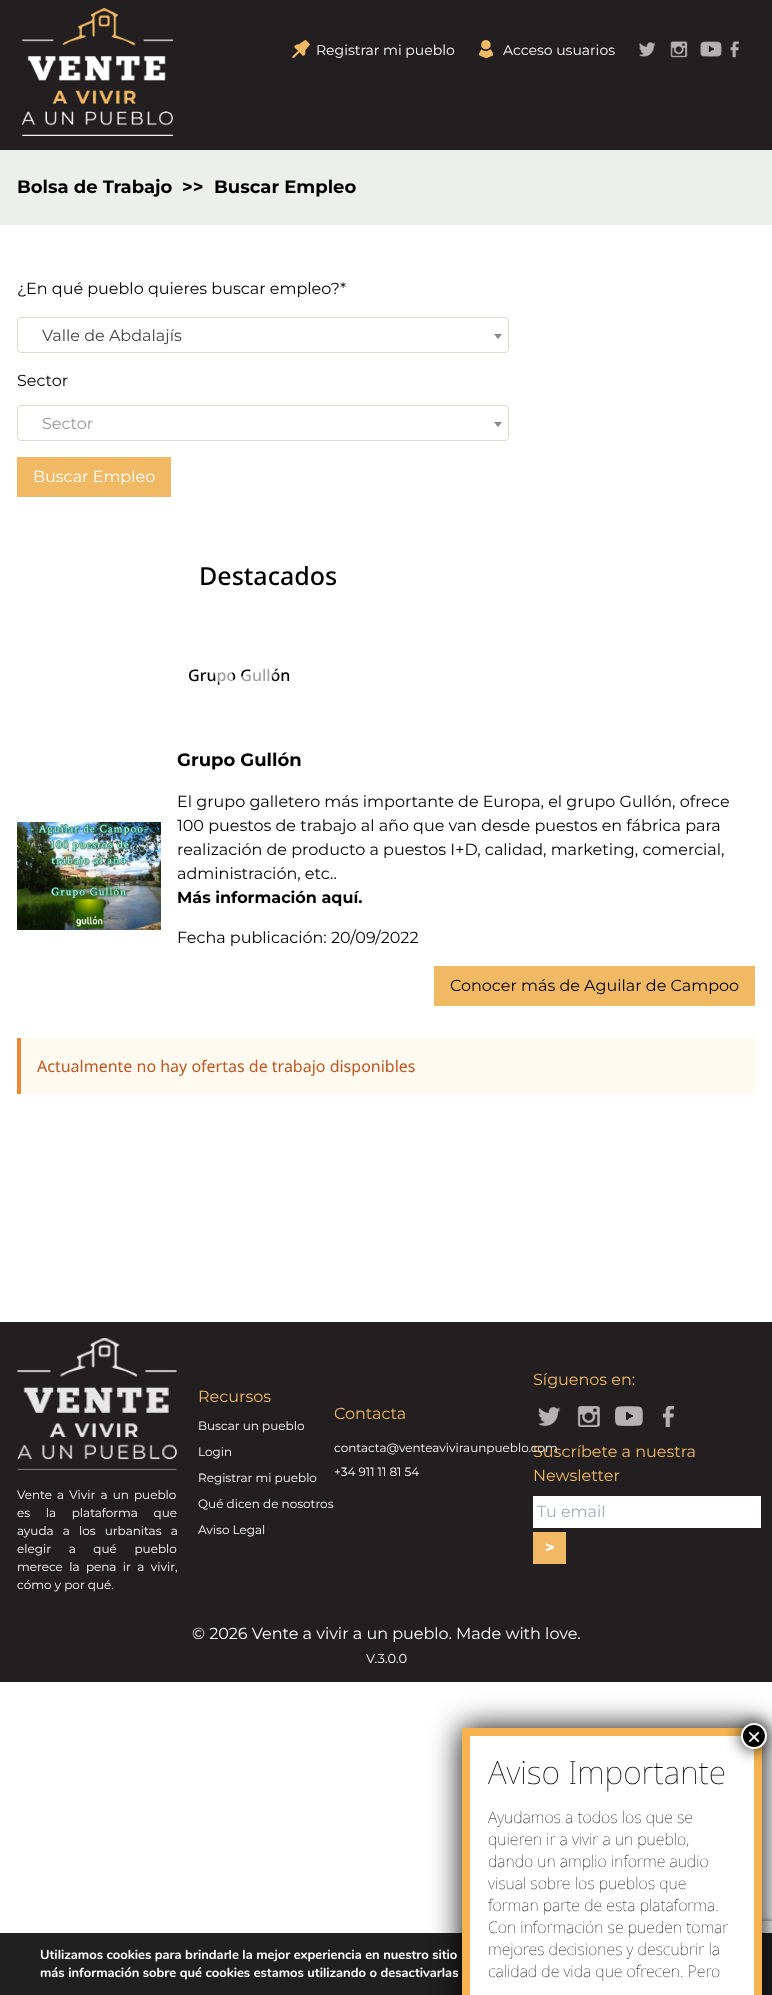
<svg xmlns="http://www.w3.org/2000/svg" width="772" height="1995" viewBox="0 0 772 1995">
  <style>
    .t1 { font: 14px Montserrat; fill: #fff; }
    .t2 { font: bold 18px Montserrat; fill: #000; }
    .t3 { font: 16px Montserrat; fill: #000; }
    .t4 { font: 16px Montserrat; fill: #444; }
    .t5 { font: 16px Montserrat; fill: #999; }
    .t6 { font: 16px Montserrat; fill: #fff; }
    .t7 { font: 500 25px Noto Sans; fill: #000; }
    .t8 { font: 500 16px Noto Sans; fill: #000; }
    .t9 { font: bold 16px Montserrat; fill: #000; }
    .t10 { font: 16px Noto Sans; fill: #c05621; }
    .t11 { font: 16px Montserrat; fill: #f0b965; }
    .t12 { font: 12px Montserrat; fill: #fff; }
    .t13 { font: 16px Montserrat; fill: #a0aec0; }
    .t14 { font: bold 16px Montserrat; fill: #fff; }
    .t15 { font: 13px Montserrat; fill: #fff; }
    .t16 { font: 24px Liberation Sans; fill: #fff; }
    .t17 { font: 100 32px Noto Sans; fill: #000; }
    .t18 { font: 100 16px Noto Sans; fill: #000; }
    .t19 { font: bold 13px Nunito; fill: #fff; }
  </style>
  <defs>
    <clipPath id="clip1"><rect x="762" y="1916" width="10" height="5"/></clipPath>
  </defs>
  <rect width="100%" height="100%" fill="#fff"/>
  <rect x="0" y="0" width="772" height="150" fill="#231f20"/>
  <image x="21" y="8" width="153" height="128" href="images/1.png"/>
  <image x="292" y="40" width="18" height="18" href="images/2.png"/>
  <text x="316" y="55" class="t1">Registrar mi pueblo</text>
  <image x="479" y="40" width="14" height="18" href="images/3.png"/>
  <text x="503" y="55" class="t1">Acceso usuarios</text>
  <image x="639" y="42" width="17" height="15" href="images/4.png"/>
  <image x="670" y="41" width="18" height="17" href="images/5.png"/>
  <image x="700" y="41" width="22" height="16" href="images/6.png"/>
  <image x="730" y="41" width="9" height="17" href="images/7.png"/>
  <rect x="0" y="150" width="772" height="75" fill="#edefea"/>
  <text x="17" y="193" class="t2">Bolsa de Trabajo</text>
  <text x="182" y="193" class="t2">&gt;&gt;</text>
  <text x="214" y="193" class="t2">Buscar Empleo</text>
  <text x="17" y="294" class="t3">¿En qué pueblo quieres buscar empleo?*</text>
  <rect x="17.5" y="317.5" width="491" height="35" rx="3.5" fill="none" stroke="#dcdad2"/>
  <text x="42" y="341" class="t4">Valle de Abdalajís</text>
  <path d="M494 334H502L498 339Z" fill="#888"/>
  <text x="17" y="386" class="t3">Sector</text>
  <rect x="17.5" y="405.5" width="491" height="35" rx="3.5" fill="none" stroke="#dcdad2"/>
  <text x="42" y="429" class="t5">Sector</text>
  <path d="M494 422H502L498 427Z" fill="#888"/>
  <rect x="17" y="457" width="154" height="40" fill="#f2b965"/>
  <text x="33" y="482" class="t6">Buscar Empleo</text>
  <text x="199" y="585" class="t7">Destacados</text>
  <text x="188" y="681" class="t8">Grupo Gullón</text>
  <path d="M222 642C227 637 234 634 241 633C270 631 287 665 266 686C261 691 254 694 247 695C218 697 201 663 222 642ZM258 667L260 665C261 662 257 661 255 660L240 651C238 649 235 646 233 649C231 651 232 669 232 673C232 684 236 680 244 675Z" fill="#ffffffa1"/>
  <image x="17" y="822" width="144" height="108" href="images/8.png"/>
  <text x="177" y="766" class="t2">Grupo Gullón</text>
  <text x="177" y="807" class="t3">El grupo galletero más importante de Europa, el grupo Gullón, ofrece</text>
  <text x="177" y="831" class="t3">100 puestos de trabajo al año que van desde puestos en fábrica para</text>
  <text x="177" y="855" class="t3">realización de producto a puestos I+D, calidad, marketing, comercial,</text>
  <text x="177" y="879" class="t3">administración, etc..</text>
  <text x="177" y="903" class="t9">Más información aquí.</text>
  <text x="177" y="943" class="t3">Fecha publicación: 20/09/2022</text>
  <rect x="434" y="966" width="321" height="40" fill="#f2b965"/>
  <text x="450" y="991" class="t3">Conocer más de Aguilar de Campoo</text>
  <rect x="21" y="1038" width="734" height="56" fill="#fffaf0"/>
  <rect x="17" y="1038" width="4" height="56" fill="#ed8936"/>
  <text x="37" y="1072" class="t10">Actualmente no hay ofertas de trabajo disponibles</text>
  <rect x="0" y="1322" width="772" height="360" fill="#231f20"/>
  <text x="198" y="1402" class="t11">Recursos</text>
  <text x="198" y="1430" class="t12">Buscar un pueblo</text>
  <text x="198" y="1456" class="t12">Login</text>
  <text x="198" y="1482" class="t12">Registrar mi pueblo</text>
  <text x="198" y="1508" class="t12">Qué dicen de nosotros</text>
  <text x="198" y="1534" class="t12">Aviso Legal</text>
  <text x="334" y="1419" class="t11">Contacta</text>
  <text x="334" y="1452" class="t12">contacta@venteaviviraunpueblo.com</text>
  <text x="334" y="1476" class="t12">+34 911 11 81 54</text>
  <text x="533" y="1385" class="t11">Síguenos en:</text>
  <image x="538" y="1406" width="23" height="21" href="images/9.png"/>
  <image x="577" y="1406" width="23" height="21" href="images/10.png"/>
  <image x="615" y="1406" width="28" height="20" href="images/11.png"/>
  <image x="663" y="1406" width="11" height="21" href="images/12.png"/>
  <text x="533" y="1457" class="t11">Suscríbete a nuestra</text>
  <text x="533" y="1481" class="t11">Newsletter</text>
  <rect x="533" y="1496" width="228" height="32" fill="#fff"/>
  <text x="537" y="1517" class="t13">Tu email</text>
  <rect x="533" y="1532" width="33" height="32" fill="#f2b965"/>
  <text x="545" y="1553" class="t14">&gt;</text>
  <image x="17" y="1338" width="160" height="132" href="images/13.png"/>
  <text x="17" y="1499" word-spacing="2" class="t12">Vente a Vivir a un pueblo</text>
  <text x="17" y="1517" word-spacing="12.5" class="t12">es la plataforma que</text>
  <text x="17" y="1535" word-spacing="6" class="t12">ayuda a los urbanitas a</text>
  <text x="17" y="1553" word-spacing="14.5" class="t12">elegir a qué pueblo</text>
  <text x="17" y="1571" word-spacing="3.25" class="t12">merece la pena ir a vivir,</text>
  <text x="17" y="1589" class="t12">cómo y por qué.</text>
  <text x="192" y="1639" class="t6">© 2026 Vente a vivir a un pueblo. Made with love.</text>
  <text x="366" y="1663" class="t15">V.3.0.0</text>
  <g clip-path="url(#clip1)">
    <rect x="702" y="1921" width="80" height="60" rx="2" fill="#808080" filter="blur(2.5px)"/>
  </g>
  <rect x="0" y="1933" width="772" height="62" fill="#202020"/>
  <rect x="697" y="1932" width="5" height="1" fill="#fff"/>
  <rect x="462" y="1728" width="300" height="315" rx="3" fill="#020202" filter="blur(15px)"/>
  <rect x="470" y="1736" width="284" height="259" fill="#fff"/>
  <path d="M466 1732H758V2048H466Z" fill="none" stroke="#f6b34f" stroke-width="8"/>
  <rect x="740" y="1722" width="28" height="28" rx="14" fill="#020202bf" filter="blur(7.5px)"/>
  <circle cx="754" cy="1736" r="12" fill="#000" stroke="#fff" stroke-width="2"/>
  <text x="747" y="1745" class="t16">×</text>
  <text x="488" y="1784" class="t17">Aviso Importante</text>
  <text x="488" y="1823" class="t18">Ayudamos a todos los que se</text>
  <text x="488" y="1845" class="t18">quieren ir a vivir a un pueblo,</text>
  <text x="488" y="1867" class="t18">dando un amplio informe audio</text>
  <text x="488" y="1889" class="t18">visual sobre los pueblos que</text>
  <text x="488" y="1911" class="t18">forman parte de esta plataforma.</text>
  <text x="488" y="1933" class="t18">Con información se pueden tomar</text>
  <text x="488" y="1955" class="t18">mejores decisiones y descubrir la</text>
  <text x="488" y="1977" class="t18">calidad de vida que ofrecen. Pero</text>
  <text x="40" y="1959" class="t19">Utilizamos cookies para brindarle la mejor experiencia en nuestro sitio</text>
  <text x="40" y="1977" class="t19">más información sobre qué cookies estamos utilizando o desactivarlas</text>
</svg>
